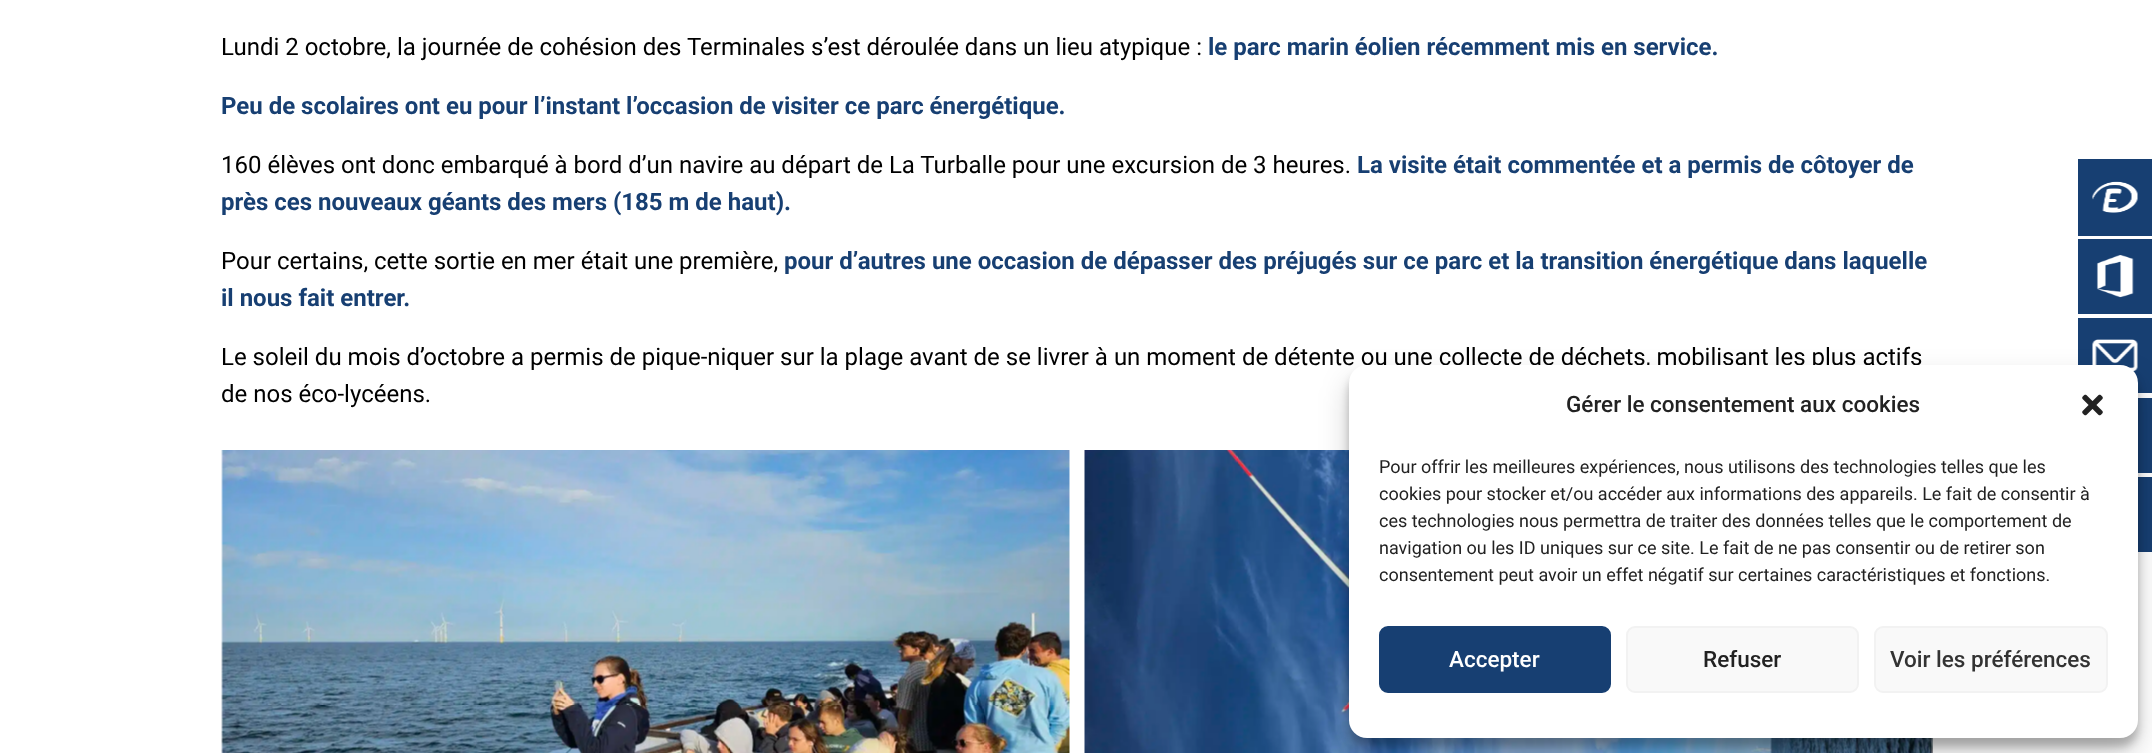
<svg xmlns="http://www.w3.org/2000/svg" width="2152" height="753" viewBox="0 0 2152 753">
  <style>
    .t1 { font: 24px Roboto; fill: #000; }
    .t2 { font: bold 24px Roboto; fill: #173f72; }
    .t3 { font: 500 22.5px Roboto; fill: #222; }
    .t4 { font: 18px Roboto; fill: #222; }
    .t5 { font: 500 22.5px Roboto; fill: #fff; }
    .t6 { font: 500 22.5px Roboto; fill: #333; }
  </style>
  <rect width="100%" height="100%" fill="#fff"/>
  <text x="221" y="55" class="t1">Lundi 2 octobre, la journée de cohésion des Terminales s’est déroulée dans un lieu atypique :</text>
  <text x="1208" y="55" class="t2">le parc marin éolien récemment mis en service.</text>
  <text x="221" y="114" class="t2">Peu de scolaires ont eu pour l’instant l’occasion de visiter ce parc énergétique.</text>
  <text x="221" y="173" class="t1">160 élèves ont donc embarqué à bord d’un navire au départ de La Turballe pour une excursion de 3 heures.</text>
  <text x="1357" y="173" class="t2">La visite était commentée et a permis de côtoyer de</text>
  <text x="221" y="210" class="t2">près ces nouveaux géants des mers (185 m de haut).</text>
  <text x="221" y="269" class="t1">Pour certains, cette sortie en mer était une première,</text>
  <text x="784" y="269" class="t2">pour d’autres une occasion de dépasser des préjugés sur ce parc et la transition énergétique dans laquelle</text>
  <text x="221" y="306" class="t2">il nous fait entrer.</text>
  <text x="221" y="365" class="t1">Le soleil du mois d’octobre a permis de pique-niquer sur la plage avant de se livrer à un moment de détente ou une collecte de déchets, mobilisant les plus actifs</text>
  <text x="221" y="402" class="t1">de nos éco-lycéens.</text>
  <image x="221" y="450" width="849" height="303" href="images/1.png"/>
  <image x="1084" y="450" width="849" height="303" href="images/2.png"/>
  <rect x="2078" y="159" width="74" height="77" fill="#173f72"/>
  <image x="2092" y="181" width="46" height="32" href="images/3.png"/>
  <rect x="2078" y="239" width="74" height="75" fill="#173f72"/>
  <image x="2096" y="255" width="38" height="43" href="images/4.png"/>
  <rect x="2078" y="318" width="74" height="75" fill="#173f72"/>
  <image x="2092" y="339" width="46" height="33" href="images/5.png"/>
  <rect x="2138" y="398" width="14" height="75" fill="#173f72"/>
  <rect x="2138" y="477" width="14" height="75" fill="#173f72"/>
  <rect x="1349" y="374" width="789" height="373" rx="18" fill="#0000003b" filter="blur(4.5px)"/>
  <rect x="1349" y="380" width="789" height="373" rx="18" fill="#00000030" filter="blur(15px)"/>
  <rect x="1349" y="365" width="789" height="373" rx="18" fill="#fff"/>
  <text x="1566" y="412" class="t3">Gérer le consentement aux cookies</text>
  <image x="2082" y="394" width="21" height="22" href="images/6.png"/>
  <text x="1379" y="473" class="t4">Pour offrir les meilleures expériences, nous utilisons des technologies telles que les</text>
  <text x="1379" y="500" class="t4">cookies pour stocker et/ou accéder aux informations des appareils. Le fait de consentir à</text>
  <text x="1379" y="527" class="t4">ces technologies nous permettra de traiter des données telles que le comportement de</text>
  <text x="1379" y="554" class="t4">navigation ou les ID uniques sur ce site. Le fait de ne pas consentir ou de retirer son</text>
  <text x="1379" y="581" class="t4">consentement peut avoir un effet négatif sur certaines caractéristiques et fonctions.</text>
  <rect x="1380" y="627" width="230" height="65" rx="8" fill="#173f72" stroke="#173f72" stroke-width="2"/>
  <text x="1449" y="667" class="t5">Accepter</text>
  <rect x="1627" y="627" width="231" height="65" rx="8" fill="#f9f9f9" stroke="#f2f2f2" stroke-width="2"/>
  <text x="1703" y="667" class="t3">Refuser</text>
  <rect x="1875" y="627" width="232" height="65" rx="8" fill="#f9f9f9" stroke="#f2f2f2" stroke-width="2"/>
  <text x="1890" y="667" class="t6">Voir les préférences</text>
</svg>
